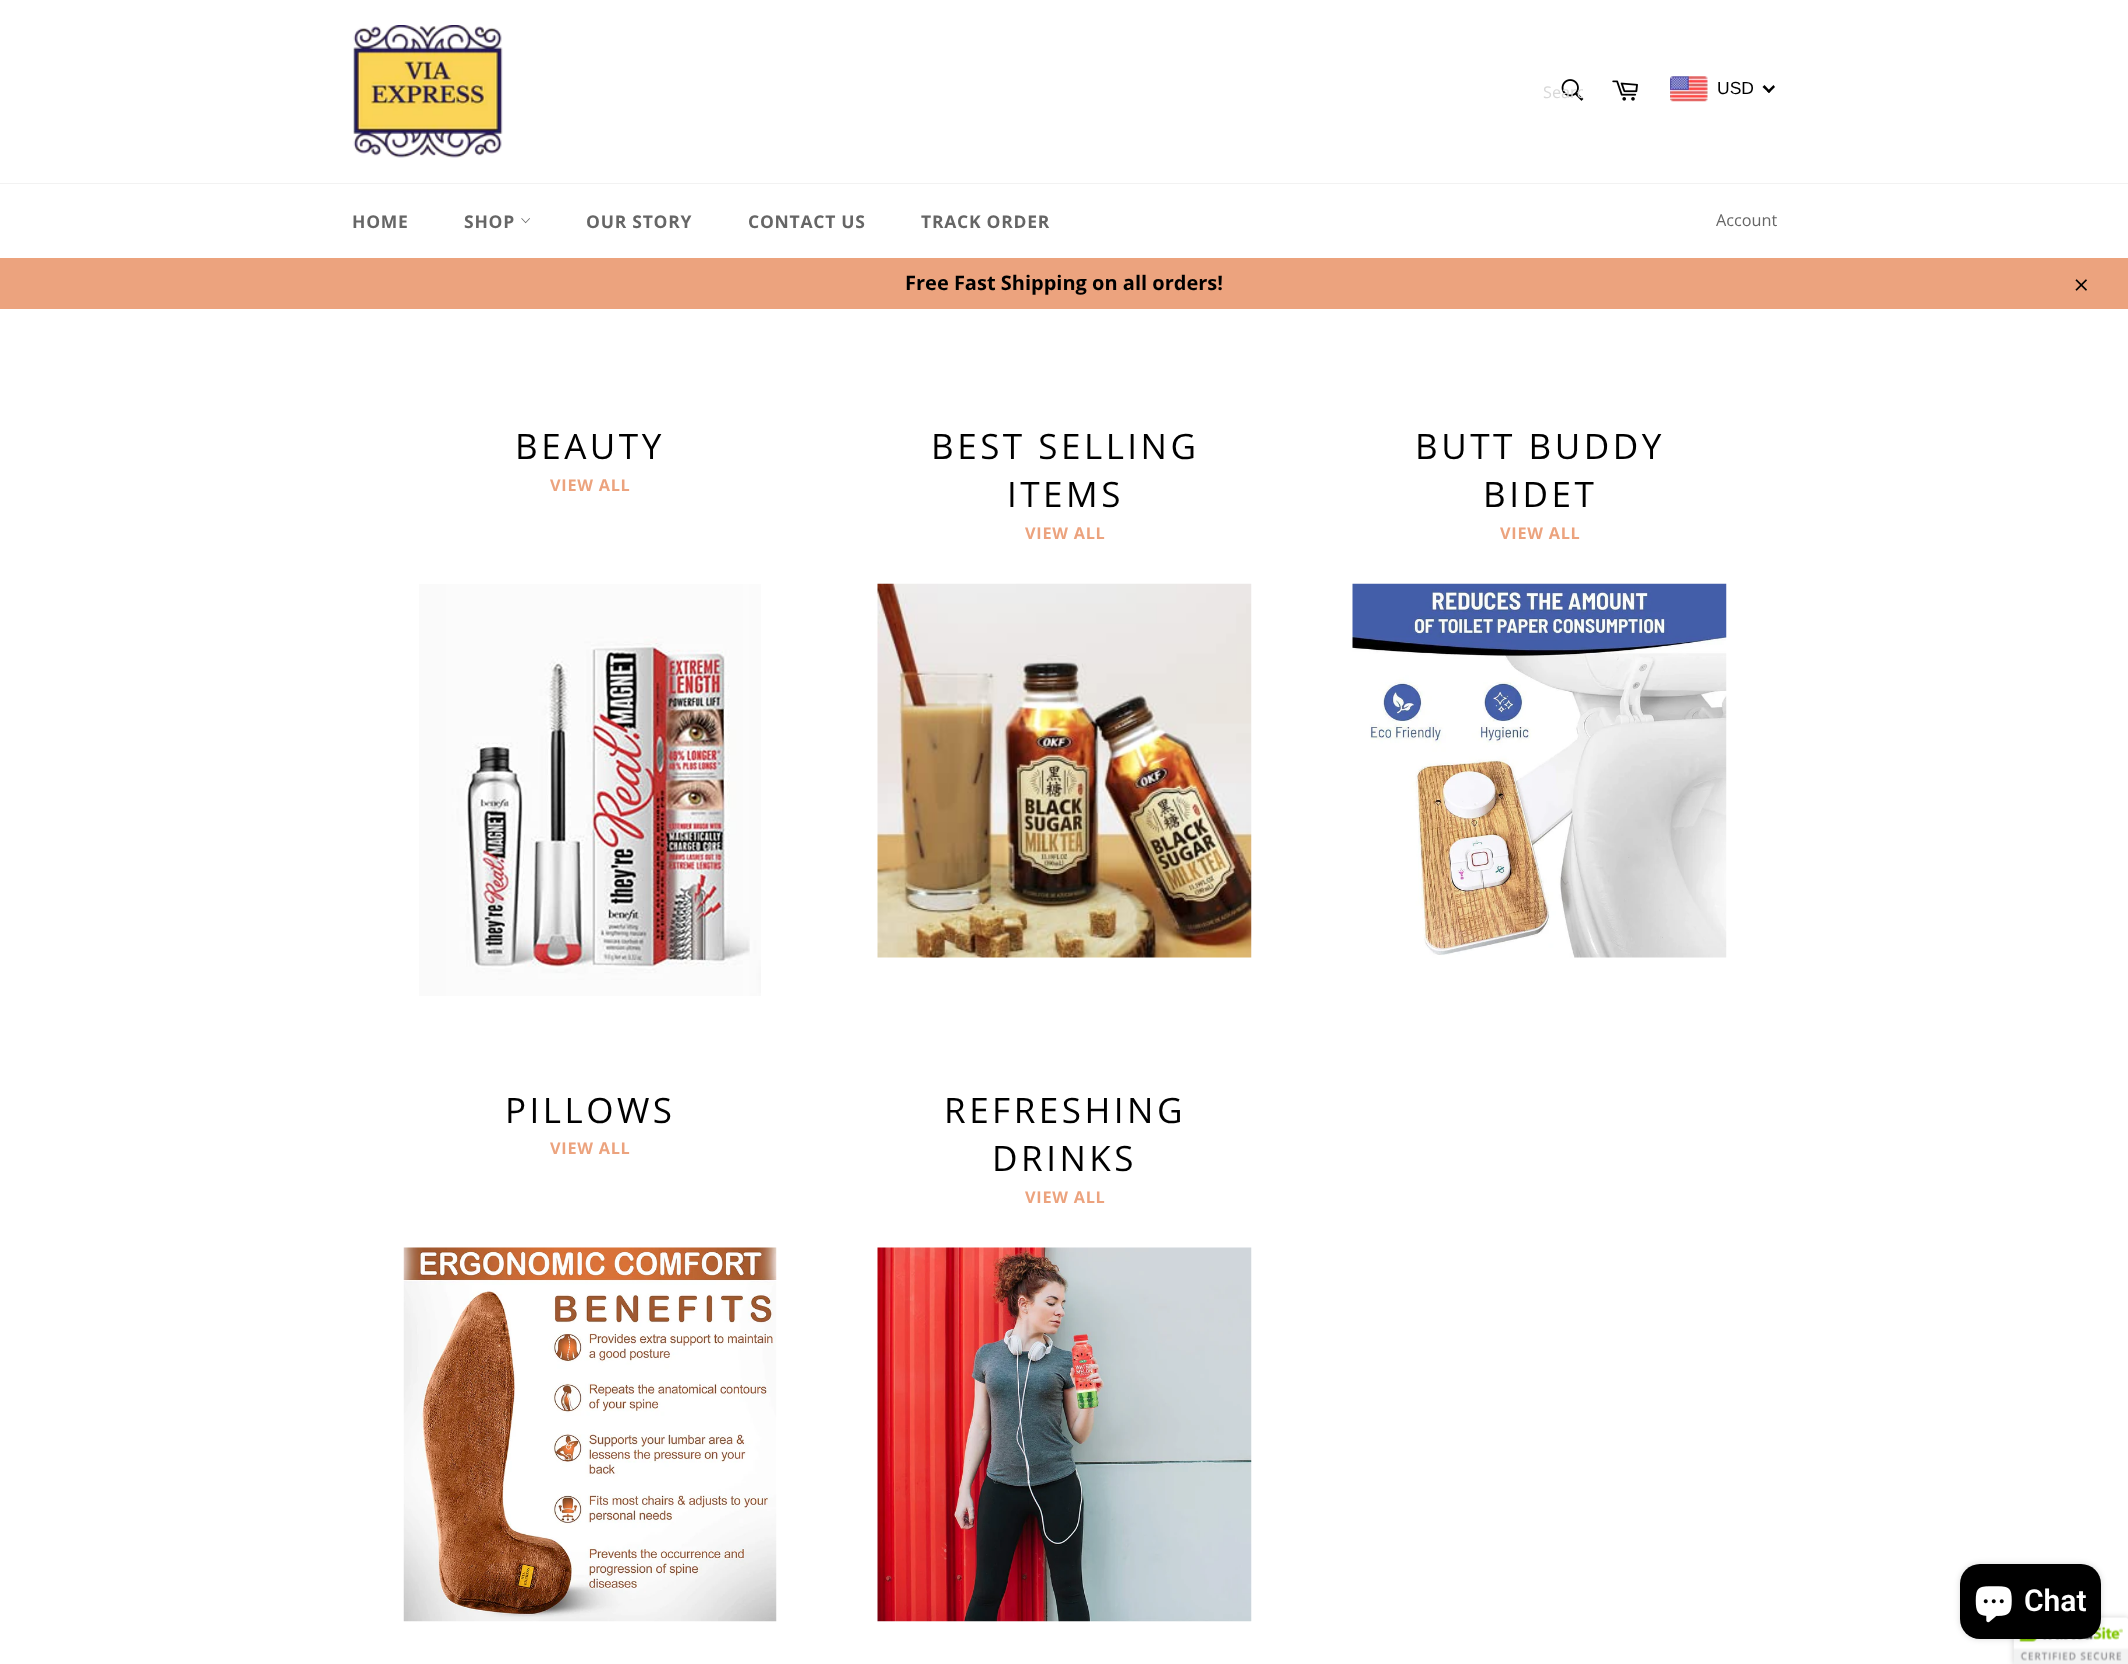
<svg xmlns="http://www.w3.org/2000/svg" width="2128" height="1664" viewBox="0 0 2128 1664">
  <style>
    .t1 { font: 16.25px Open Sans; fill: #d8d8d8; }
    .t2 { font: 17.5px Liberation Sans; fill: #000; }
    .t3 { font: bold 17.5px Open Sans; letter-spacing: 0.75px; fill: #666; }
    .t4 { font: 16.25px Open Sans; fill: #666; }
    .t5 { font: bold 20px Open Sans; fill: #000; }
    .t6 { font: 35px Open Sans; letter-spacing: 3.5px; fill: #000; }
    .t7 { font: bold 16.25px Open Sans; letter-spacing: 0.75px; fill: #eca37e; }
    .t8 { font: 600 30px Roboto; fill: #fff; }
  </style>
  <defs>
    <clipPath id="clip1"><rect x="1543" y="80" width="40" height="23"/></clipPath>
  </defs>
  <rect width="100%" height="100%" fill="#fff"/>
  <image x="353" y="25" width="150" height="133" href="images/1.png"/>
  <image x="1561" y="79" width="23" height="22" href="images/2.png"/>
  <g clip-path="url(#clip1)">
    <text x="1543" y="98" class="t1">Searc</text>
  </g>
  <image x="1612" y="80" width="26" height="21" href="images/3.png"/>
  <image x="1670" y="76" width="38" height="26" href="images/4.png"/>
  <text x="1717" y="94" class="t2">USD</text>
  <path d="M1773.5 85L1775 87L1769 93L1767 91.5Z" fill="#000"/>
  <path d="M1764.5 85L1770.5 91.5L1769 93L1762.5 87Z" fill="#000"/>
  <rect x="0" y="183" width="2128" height="1" fill="#f2f2f2"/>
  <text x="352" y="228" class="t3">HOME</text>
  <text x="464" y="228" class="t3">SHOP</text>
  <image x="521" y="218" width="9" height="6" href="images/5.png"/>
  <text x="586" y="228" class="t3">OUR STORY</text>
  <text x="748" y="228" class="t3">CONTACT US</text>
  <text x="921" y="228" class="t3">TRACK ORDER</text>
  <text x="1716" y="226" class="t4">Account</text>
  <rect x="0" y="258" width="2128" height="51" fill="#eca37e"/>
  <text x="905" y="290" class="t5">Free Fast Shipping on all orders!</text>
  <image x="2075" y="279" width="12" height="12" href="images/6.png"/>
  <text x="515" y="459" class="t6">BEAUTY</text>
  <text x="550" y="491" class="t7">VIEW ALL</text>
  <image x="419" y="584" width="342" height="412" href="images/7.png"/>
  <text x="931" y="459" class="t6">BEST SELLING</text>
  <text x="1007" y="507" class="t6">ITEMS</text>
  <text x="1025" y="539" class="t7">VIEW ALL</text>
  <image x="877" y="583" width="375" height="375" href="images/8.png"/>
  <text x="1415" y="459" class="t6">BUTT BUDDY</text>
  <text x="1483" y="507" class="t6">BIDET</text>
  <text x="1500" y="539" class="t7">VIEW ALL</text>
  <image x="1352" y="583" width="375" height="375" href="images/9.png"/>
  <text x="505" y="1123" class="t6">PILLOWS</text>
  <text x="550" y="1154" class="t7">VIEW ALL</text>
  <image x="403" y="1247" width="374" height="375" href="images/10.png"/>
  <text x="944" y="1123" class="t6">REFRESHING</text>
  <text x="992" y="1171" class="t6">DRINKS</text>
  <text x="1025" y="1203" class="t7">VIEW ALL</text>
  <image x="877" y="1247" width="375" height="375" href="images/11.png"/>
  <rect x="2014" y="1618" width="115" height="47" rx="2.5" fill="#00000033" filter="blur(3px)"/>
  <image x="2013" y="1617" width="115" height="47" href="images/13.png"/>
  <rect x="1960" y="1564" width="141" height="75" rx="20" fill="#00000026" filter="blur(3px)"/>
  <rect x="1960" y="1564" width="141" height="75" rx="20" fill="#000"/>
  <image x="1975" y="1586" width="37" height="37" href="images/12.png"/>
  <text x="2024" y="1611" class="t8">Chat</text>
</svg>
